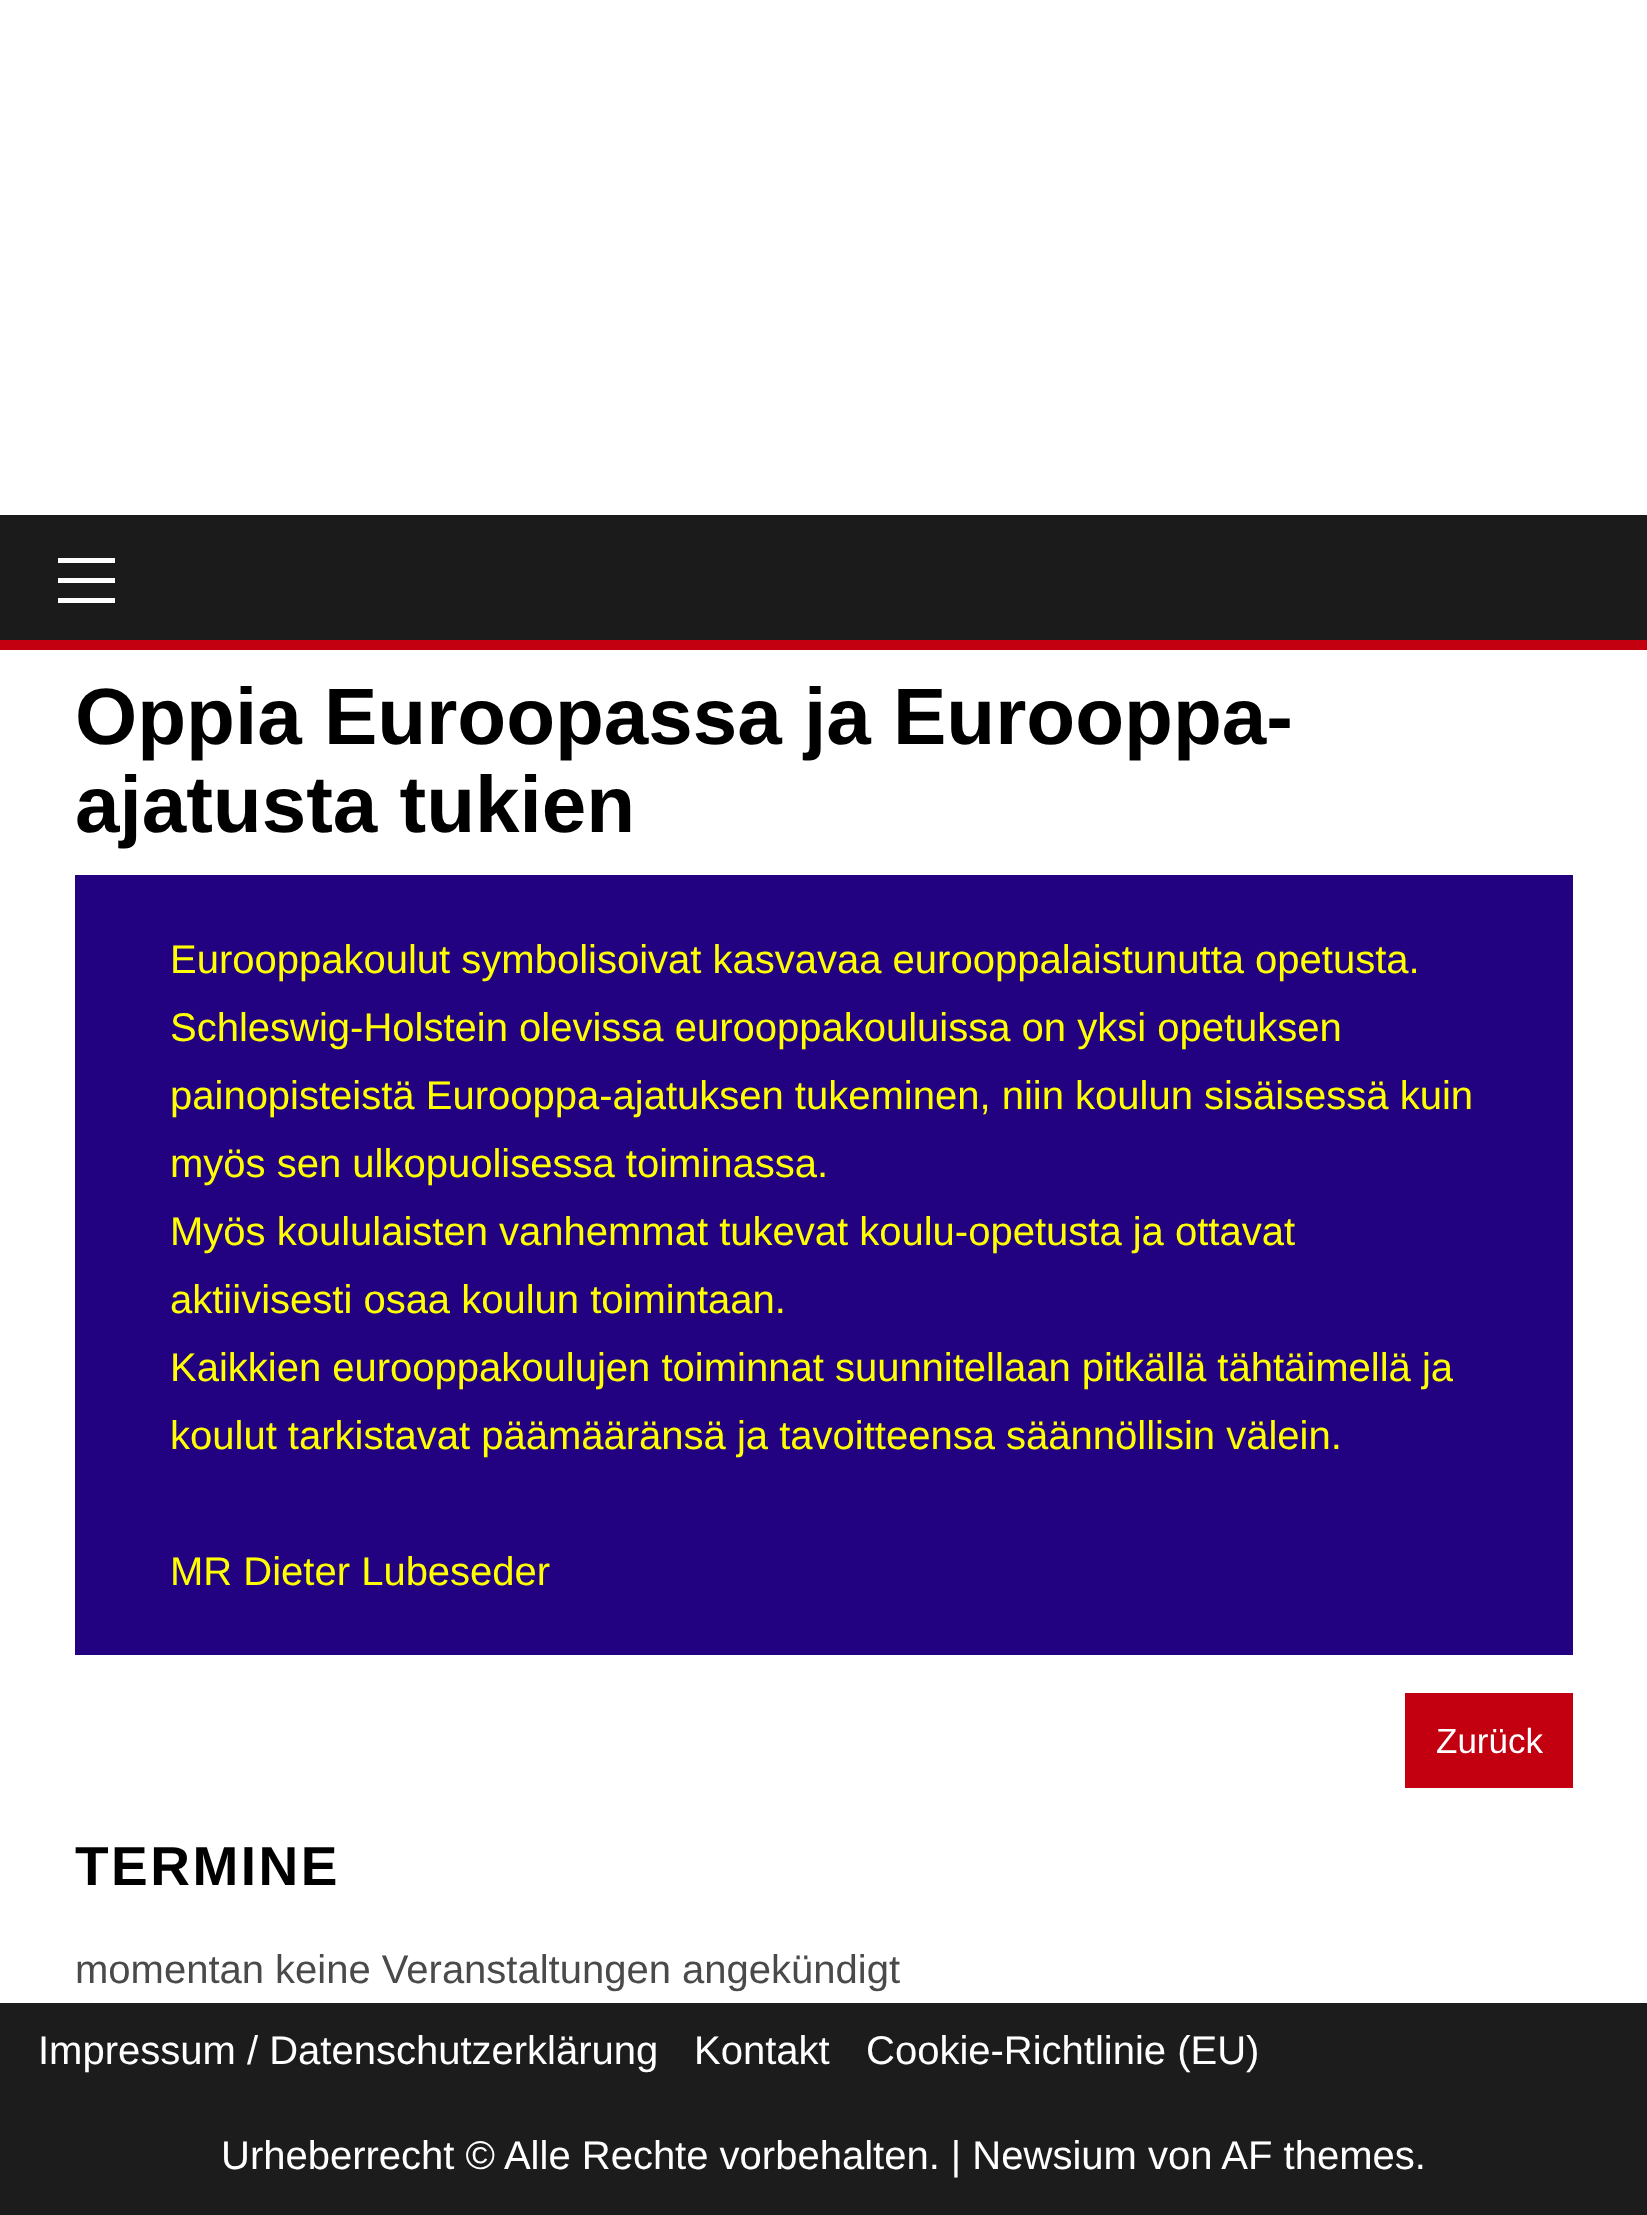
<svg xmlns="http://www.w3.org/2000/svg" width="1647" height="2215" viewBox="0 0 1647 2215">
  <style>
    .t1 { font: bold 80px Liberation Sans; fill: #000; }
    .t2 { font: 40px Liberation Sans; fill: #ff0; }
    .t3 { font: 35px Liberation Sans; fill: #fff; }
    .t4 { font: bold 55px Liberation Sans; letter-spacing: 2.5px; fill: #000; }
    .t5 { font: 40px Liberation Sans; fill: #4a4a4a; }
    .t6 { font: 40px Liberation Sans; fill: #fff; }
  </style>
  <rect width="100%" height="100%" fill="#fff"/>
  <rect x="0" y="515" width="1647" height="125" fill="#1b1b1b"/>
  <rect x="0" y="640" width="1647" height="10" fill="#c30010"/>
  <rect x="58" y="578" width="57" height="5" fill="#fff"/>
  <rect x="58" y="558" width="57" height="5" fill="#fff"/>
  <rect x="58" y="598" width="57" height="5" fill="#fff"/>
  <text x="75" y="744" class="t1">Oppia Euroopassa ja Eurooppa-</text>
  <text x="75" y="832" class="t1">ajatusta tukien</text>
  <rect x="75" y="875" width="1498" height="780" fill="#220281"/>
  <text x="170" y="973" class="t2">Eurooppakoulut symbolisoivat kasvavaa eurooppalaistunutta opetusta.</text>
  <text x="170" y="1041" class="t2">Schleswig-Holstein olevissa eurooppakouluissa on yksi opetuksen</text>
  <text x="170" y="1109" class="t2">painopisteistä Eurooppa-ajatuksen tukeminen, niin koulun sisäisessä kuin</text>
  <text x="170" y="1177" class="t2">myös sen ulkopuolisessa toiminassa.</text>
  <text x="170" y="1245" class="t2">Myös koululaisten vanhemmat tukevat koulu-opetusta ja ottavat</text>
  <text x="170" y="1313" class="t2">aktiivisesti osaa koulun toimintaan.</text>
  <text x="170" y="1381" class="t2">Kaikkien eurooppakoulujen toiminnat suunnitellaan pitkällä tähtäimellä ja</text>
  <text x="170" y="1449" class="t2">koulut tarkistavat päämääränsä ja tavoitteensa säännöllisin välein.</text>
  <text x="170" y="1585" class="t2">MR Dieter Lubeseder</text>
  <rect x="1405" y="1693" width="168" height="95" fill="#c30010"/>
  <text x="1436" y="1753" class="t3">Zurück</text>
  <text x="75" y="1885" class="t4">TERMINE</text>
  <text x="75" y="1983" class="t5">momentan keine Veranstaltungen angekündigt</text>
  <rect x="0" y="2003" width="1647" height="212" fill="#1c1c1c"/>
  <text x="38" y="2064" class="t6">Impressum / Datenschutzerklärung</text>
  <text x="694" y="2064" class="t6">Kontakt</text>
  <text x="866" y="2064" class="t6">Cookie-Richtlinie (EU)</text>
  <text x="221" y="2169" class="t6">Urheberrecht © Alle Rechte vorbehalten. | Newsium von AF themes.</text>
</svg>
